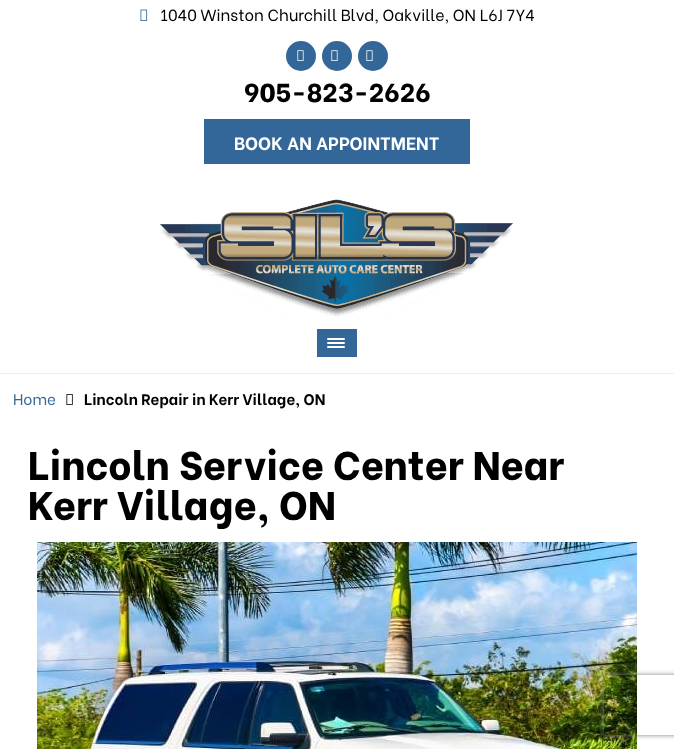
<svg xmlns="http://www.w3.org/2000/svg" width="674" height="749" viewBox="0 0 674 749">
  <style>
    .t1 { font: 16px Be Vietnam; fill: #000; }
    .t2 { font: 800 26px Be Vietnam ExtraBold; fill: #000; }
    .t3 { font: bold 18px Be Vietnam; fill: #fff; }
    .t4 { font: 15.25px Be Vietnam; fill: #369; }
    .t5 { font: bold 15.25px Be Vietnam; fill: #000; }
    .t6 { font: 800 40px Be Vietnam ExtraBold; fill: #000; }
  </style>
  <defs>
    <clipPath id="clip1"><path d="M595 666H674V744H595ZM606 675H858C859 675 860 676 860 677V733C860 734 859 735 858 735H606C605 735 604 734 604 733V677C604 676 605 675 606 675Z" clip-rule="evenodd"/></clipPath>
  </defs>
  <rect width="100%" height="100%" fill="#fff"/>
  <image x="140" y="9" width="8" height="12" href="images/1.png"/>
  <text x="160" y="21" class="t1">1040 Winston Churchill Blvd, Oakville, ON L6J 7Y4</text>
  <circle cx="301" cy="56" r="15" fill="#369"/>
  <image x="297" y="50" width="7" height="11" href="images/2.png"/>
  <circle cx="337" cy="56" r="15" fill="#369"/>
  <image x="331" y="50" width="7" height="11" href="images/2.png"/>
  <circle cx="373" cy="56" r="15" fill="#369"/>
  <image x="366" y="50" width="7" height="11" href="images/2.png"/>
  <text x="244" y="102" class="t2">905-823-2626</text>
  <rect x="204" y="119" width="266" height="45" fill="#369"/>
  <text x="234" y="150" class="t3">BOOK AN APPOINTMENT</text>
  <rect x="0" y="373" width="674" height="1" fill="#eee"/>
  <image x="160" y="199" width="353" height="120" href="images/3.png"/>
  <rect x="317" y="329" width="40" height="28" fill="#369"/>
  <rect x="327" y="338" width="18" height="2" rx="1" fill="#fff"/>
  <rect x="327" y="342" width="18" height="2" rx="1" fill="#fff"/>
  <rect x="327" y="346" width="18" height="2" rx="1" fill="#fff"/>
  <text x="13" y="405" class="t4">Home</text>
  <image x="66" y="394" width="7" height="11" href="images/4.png"/>
  <text x="84" y="405" class="t5">Lincoln Repair in Kerr Village, ON</text>
  <text x="28" y="480" class="t6">Lincoln Service Center Near</text>
  <text x="28" y="520" class="t6">Kerr Village, ON</text>
  <image x="37" y="542" width="600" height="207" href="images/5.png"/>
  <g clip-path="url(#clip1)">
    <rect x="604" y="675" width="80" height="60" rx="2" fill="#808080" filter="blur(2.5px)"/>
  </g>
</svg>
